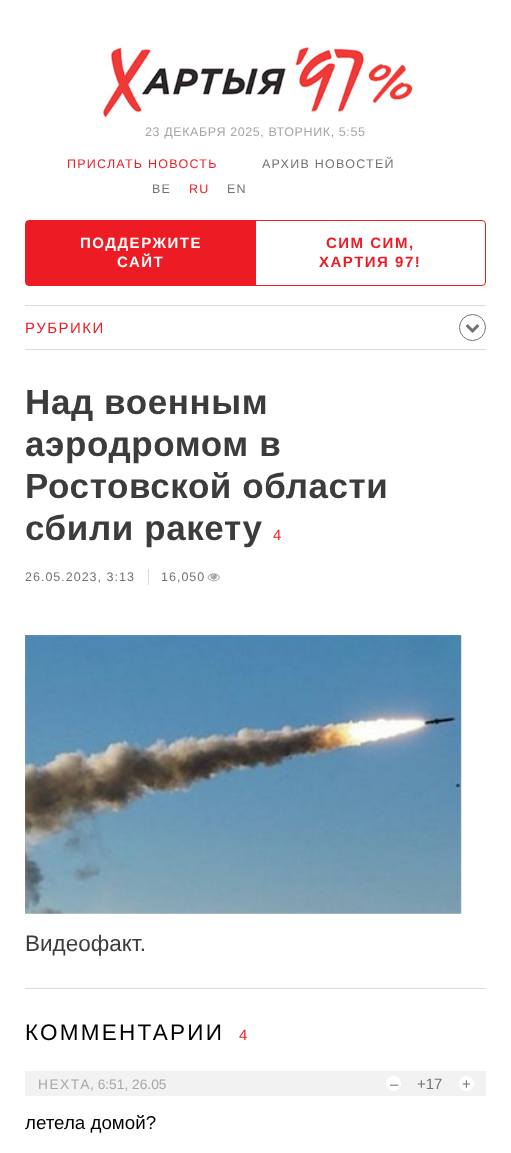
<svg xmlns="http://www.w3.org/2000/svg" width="511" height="1153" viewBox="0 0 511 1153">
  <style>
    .t1 { font: 12.5px Liberation Sans; letter-spacing: 0.6px; fill: #a6a6a6; }
    .t2 { font: 12.5px Liberation Sans; letter-spacing: 1.25px; fill: #ed1c24; }
    .t3 { font: 12.5px Liberation Sans; letter-spacing: 1.25px; fill: #737373; }
    .t4 { font: bold 15px Liberation Sans; letter-spacing: 1.5px; fill: #fff; }
    .t5 { font: bold 15px Liberation Sans; letter-spacing: 1.5px; fill: #ed1c24; }
    .t6 { font: 15px Liberation Sans; letter-spacing: 1.5px; fill: #ed1c24; }
    .t7 { font: bold 35px Liberation Sans; letter-spacing: 0.6px; fill: #3c3c3c; }
    .t8 { font: 15px Liberation Sans; fill: #ed1c24; }
    .t9 { font: 12.5px Liberation Sans; letter-spacing: 1px; fill: #737373; }
    .t10 { font: 22.5px Liberation Sans; fill: #3c3c3c; }
    .t11 { font: 22.5px Liberation Sans; letter-spacing: 2.25px; fill: #000; }
    .t12 { font: 15px Liberation Sans; letter-spacing: 2.25px; fill: #ed1c24; }
    .t13 { font: 13.75px Liberation Sans; letter-spacing: 1.5px; fill: #a6a6a6; }
    .t14 { font: 13.75px Liberation Sans; fill: #a6a6a6; }
    .t15 { font: 15px Liberation Sans; fill: #737373; }
    .t16 { font: 18.75px Liberation Sans; fill: #000; }
  </style>
  <rect width="100%" height="100%" fill="#fff"/>
  <image x="100" y="42" width="313" height="77" href="images/1.png"/>
  <text x="145" y="136" class="t1">23 ДЕКАБРЯ 2025, ВТОРНИК, 5:55</text>
  <text x="67" y="168" class="t2">ПРИСЛАТЬ НОВОСТЬ</text>
  <text x="262" y="168" class="t3">АРХИВ НОВОСТЕЙ</text>
  <text x="152" y="193" class="t3">BE</text>
  <text x="189" y="193" class="t2">RU</text>
  <text x="227" y="193" class="t3">EN</text>
  <rect x="25.5" y="220.5" width="460" height="65" rx="3.5" fill="none" stroke="#ed1c24"/>
  <rect x="26" y="221" width="230" height="64" fill="#ed1c24"/>
  <text x="80" y="248" class="t4">ПОДДЕРЖИТЕ</text>
  <text x="117" y="267" class="t4">САЙТ</text>
  <text x="326" y="248" class="t5">СИМ СИМ,</text>
  <text x="319" y="267" class="t5">ХАРТИЯ 97!</text>
  <rect x="25" y="305" width="461" height="1" fill="#dcdcdc"/>
  <rect x="25" y="349" width="461" height="1" fill="#dcdcdc"/>
  <text x="25" y="333" class="t6">РУБРИКИ</text>
  <circle cx="472.5" cy="327.5" r="13" fill="none" stroke="#737373"/>
  <image x="465" y="324" width="15" height="9" href="images/2.png"/>
  <text x="25" y="414" class="t7">Над военным</text>
  <text x="25" y="456" class="t7">аэродромом в</text>
  <text x="25" y="498" class="t7">Ростовской области</text>
  <text x="25" y="540" class="t7">сбили ракету</text>
  <text x="273" y="540" class="t8">4</text>
  <rect x="148" y="569" width="1" height="16" fill="#dcdcdc"/>
  <text x="25" y="581" class="t9">26.05.2023, 3:13</text>
  <text x="161" y="581" class="t9">16,050</text>
  <image x="207" y="573" width="13" height="9" href="images/3.png"/>
  <image x="25" y="635" width="437" height="279" href="images/4.png"/>
  <text x="25" y="951" class="t10">Видеофакт.</text>
  <rect x="25" y="988" width="461" height="1" fill="#dcdcdc"/>
  <text x="25" y="1040" class="t11">КОММЕНТАРИИ</text>
  <text x="239" y="1040" class="t12">4</text>
  <rect x="25" y="1071" width="461" height="25" fill="#f2f2f2"/>
  <text x="38" y="1089" class="t13">НЕХТА</text>
  <text x="90" y="1089" class="t14">, 6:51, 26.05</text>
  <circle cx="393.5" cy="1083.5" r="7.5" fill="#fff"/>
  <text x="390" y="1089" class="t15">–</text>
  <text x="417" y="1089" class="t15">+17</text>
  <circle cx="466.5" cy="1083.5" r="7.5" fill="#fff"/>
  <text x="462" y="1089" class="t15">+</text>
  <text x="25" y="1129" class="t16">летела домой?</text>
</svg>
